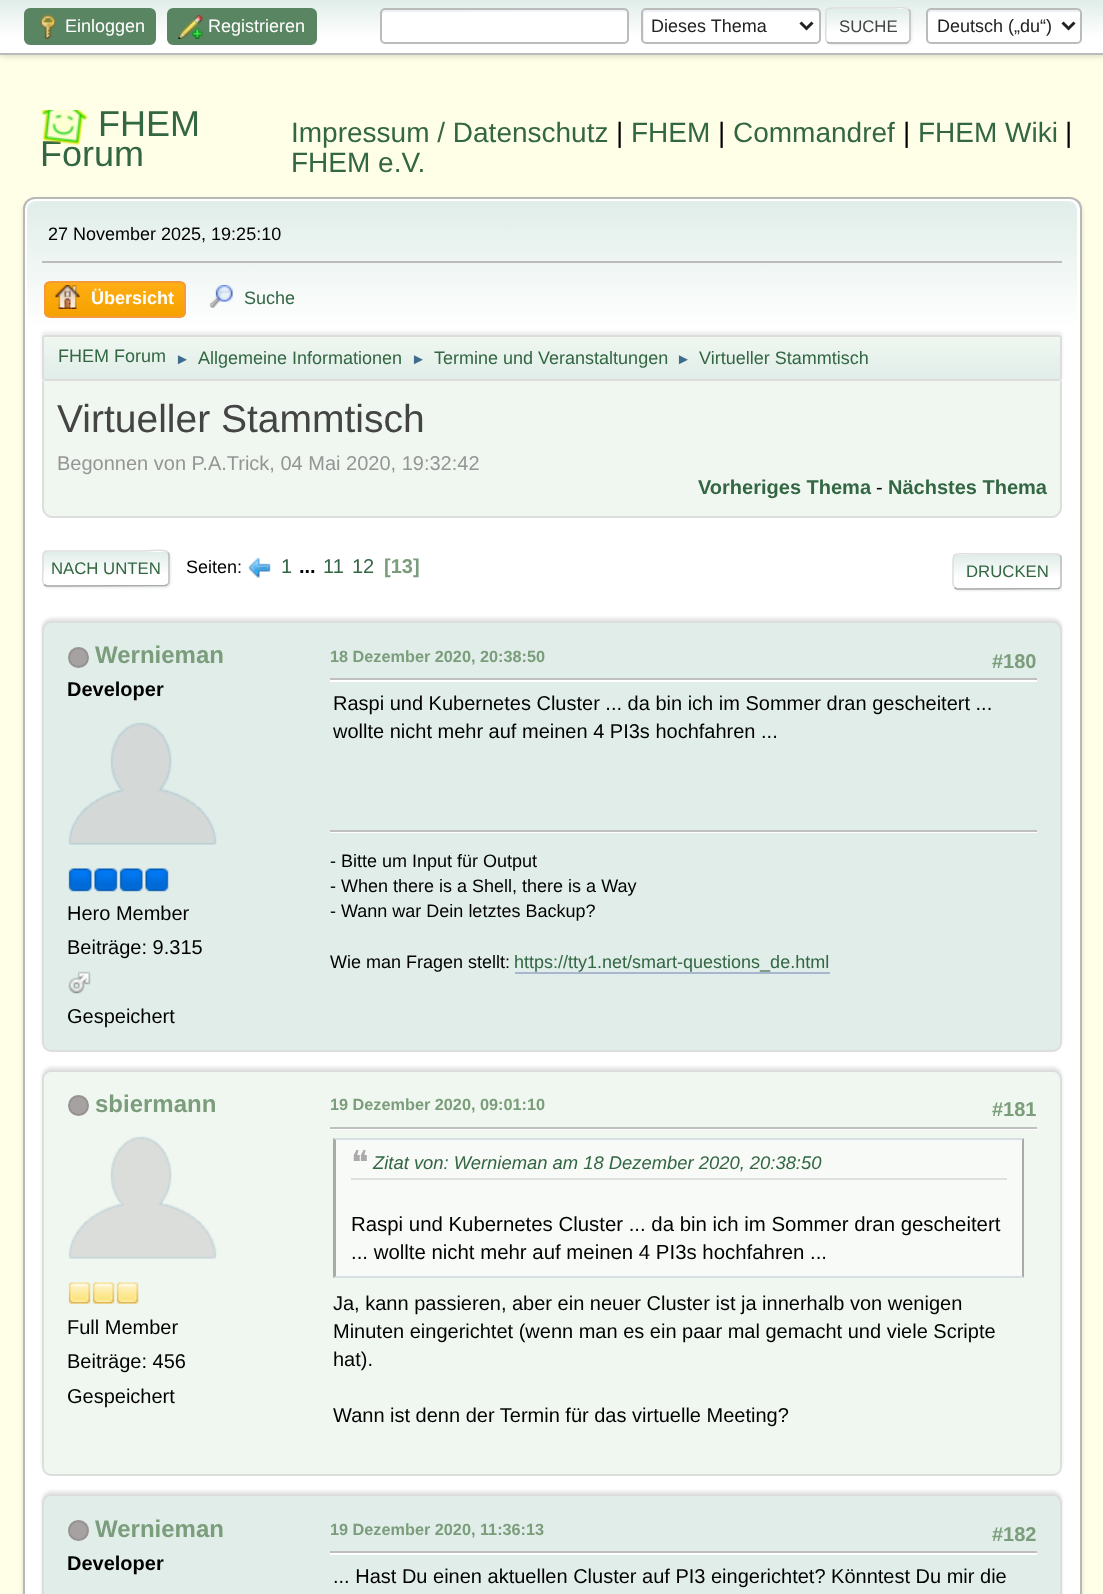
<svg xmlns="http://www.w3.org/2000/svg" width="1103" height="1594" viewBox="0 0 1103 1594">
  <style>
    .t1 { font: 18px Liberation Sans; fill: #fff; }
    .t2 { font: 18px Liberation Sans; fill: #222; }
    .t3 { font: 16.75px Liberation Sans; fill: #444; }
    .t4 { font: 36px Liberation Sans; fill: #336642; }
    .t5 { font: 28px Liberation Sans; fill: #336642; }
    .t6 { font: 28px Liberation Sans; fill: #000; }
    .t7 { font: 18px Liberation Sans; fill: #000; }
    .t8 { font: bold 18px Liberation Sans; fill: #fff; }
    .t9 { font: 18px Liberation Sans; fill: #336642; }
    .t10 { font: 15px Liberation Sans; fill: #3f6b8c; }
    .t11 { font: 39px Liberation Sans; fill: #444; }
    .t12 { font: 20px Liberation Sans; fill: #959595; }
    .t13 { font: bold 20px Liberation Sans; fill: #336642; }
    .t14 { font: 20px Liberation Sans; fill: #000; }
    .t15 { font: 16.75px Liberation Sans; fill: #336642; }
    .t16 { font: 20px Liberation Sans; fill: #336642; }
    .t17 { font: bold 20px Liberation Sans; fill: #000; }
    .t18 { font: bold 20px Liberation Sans; fill: #7b9d7b; }
    .t19 { font: bold 24px Liberation Sans; fill: #7b9d7b; }
    .t20 { font: bold 16.25px Liberation Sans; fill: #7b9d7b; }
    .t21 { font: 33px DejaVu Sans; fill: #aaa; }
    .t22 { font: italic 18.4px Liberation Sans; fill: #336642; }
    .t23 { font: 20.4px Liberation Sans; fill: #000; }
  </style>
  <defs>
    <linearGradient id="g1" gradientUnits="userSpaceOnUse" x1="552" y1="0" x2="552" y2="53"><stop offset="0" stop-color="#e0ede9"/><stop offset="0.7" stop-color="#fff"/></linearGradient>
    <clipPath id="clip1"><rect x="825" y="8" width="86" height="36" rx="5"/></clipPath>
    <linearGradient id="g2" gradientUnits="userSpaceOnUse" x1="868" y1="-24" x2="868" y2="9"><stop offset="0" stop-color="#e0ede9"/><stop offset="0.7" stop-color="#fff"/></linearGradient>
    <linearGradient id="g3" gradientUnits="userSpaceOnUse" x1="868" y1="9" x2="868" y2="42"><stop offset="0" stop-color="#e0ede9"/><stop offset="0.7" stop-color="#fff"/></linearGradient>
    <linearGradient id="g4" gradientUnits="userSpaceOnUse" x1="868" y1="42" x2="868" y2="75"><stop offset="0" stop-color="#e0ede9"/><stop offset="0.7" stop-color="#fff"/></linearGradient>
    <linearGradient id="g5" gradientUnits="userSpaceOnUse" x1="552" y1="201" x2="552" y2="384"><stop offset="0" stop-color="#e0ede9"/><stop offset="0.7" stop-color="#fff"/></linearGradient>
    <clipPath id="clip2"><rect x="44" y="281" width="142" height="37" rx="6"/></clipPath>
    <linearGradient id="g6" gradientUnits="userSpaceOnUse" x1="115" y1="282" x2="115" y2="317"><stop offset="0" stop-color="#ffae14"/><stop offset="1" stop-color="#f5a100"/></linearGradient>
    <clipPath id="clip3"><rect x="42" y="335" width="1020" height="46" rx="3"/></clipPath>
    <linearGradient id="g7" gradientUnits="userSpaceOnUse" x1="552" y1="336" x2="552" y2="380"><stop offset="0" stop-color="#f0f7f0"/><stop offset="1" stop-color="#e0ede9"/></linearGradient>
    <clipPath id="clip4"><rect x="42" y="551" width="128" height="36" rx="5"/></clipPath>
    <linearGradient id="g8" gradientUnits="userSpaceOnUse" x1="106" y1="552" x2="106" y2="585"><stop offset="0" stop-color="#e0ede9"/><stop offset="0.7" stop-color="#fff"/></linearGradient>
    <linearGradient id="g9" gradientUnits="userSpaceOnUse" x1="106" y1="585" x2="106" y2="618"><stop offset="0" stop-color="#e0ede9"/><stop offset="0.7" stop-color="#fff"/></linearGradient>
    <clipPath id="clip5"><rect x="42" y="540" width="1020" height="63"/></clipPath>
    <clipPath id="clip6"><rect x="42" y="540" width="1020" height="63"/></clipPath>
    <clipPath id="clip7"><rect x="953" y="554" width="109" height="36" rx="5"/></clipPath>
    <linearGradient id="g10" gradientUnits="userSpaceOnUse" x1="1007" y1="555" x2="1007" y2="588"><stop offset="0" stop-color="#e0ede9"/><stop offset="0.7" stop-color="#fff"/></linearGradient>
    <linearGradient id="g11" gradientUnits="userSpaceOnUse" x1="1007" y1="588" x2="1007" y2="621"><stop offset="0" stop-color="#e0ede9"/><stop offset="0.7" stop-color="#fff"/></linearGradient>
  </defs>
  <rect width="100%" height="100%" fill="#ffffe7"/>
  <rect x="0" y="2" width="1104" height="54" fill="#00000029" filter="blur(3px)"/>
  <rect x="0" y="0" width="1103" height="53" fill="url(#g1)"/>
  <rect x="0" y="53" width="1103" height="2" fill="#bbb"/>
  <rect x="25" y="9" width="130" height="35" rx="5" fill="#5a8563" stroke="#5a8563" stroke-width="2"/>
  <image x="40" y="15" width="16" height="24" href="images/1.png"/>
  <text x="65" y="32" class="t1">Einloggen</text>
  <rect x="168" y="9" width="148" height="35" rx="5" fill="#5a8563" stroke="#5a8563" stroke-width="2"/>
  <image x="178" y="15" width="25" height="24" href="images/2.png"/>
  <text x="208" y="32" class="t1">Registrieren</text>
  <rect x="380" y="8" width="249" height="36" rx="5" fill="#fff"/>
  <path d="M386 12C408 12 626 11 627 12C627 10 626 9 624 9H384C382 9 381 10 381 12V39C381 40 381 41 382 41V15C382 13 384 12 386 12Z" fill="#ecf1f8"/>
  <rect x="381" y="9" width="247" height="34" rx="4" fill="none" stroke="#bbb" stroke-width="2"/>
  <rect x="641" y="8" width="180" height="36" rx="5" fill="#fff"/>
  <path d="M646 12C662 12 818 11 819 12C819 10 818 9 816 9H645C643 9 642 10 642 12V39C642 40 643 41 644 42V15C644 13 645 12 646 12Z" fill="#ecf1f8"/>
  <rect x="642" y="9" width="178" height="34" rx="4" fill="none" stroke="#bbb" stroke-width="2"/>
  <path d="M800.5 22.5L806.5 28.5L812.5 22.5" fill="none" stroke="#222" stroke-width="3"/>
  <text x="651" y="32" class="t2">Dieses Thema</text>
  <rect x="827" y="9" width="85" height="36" rx="5" fill="#dddddd91" filter="blur(1px)"/>
  <g clip-path="url(#clip1)">
    <rect x="825" y="8" width="86" height="1" fill="url(#g2)"/>
    <rect x="825" y="9" width="86" height="33" fill="url(#g3)"/>
    <rect x="825" y="42" width="86" height="2" fill="url(#g4)"/>
  </g>
  <path d="M908.5 9.5C909.5 10 910 11 910 12V39C910 40 909.5 41 908.5 41.5" fill="none" stroke="#bbb" stroke-width="1.5"/>
  <path d="M908.5 41.5C908 42.5 907 43 906 43H829.5C828.5 43 827.5 42.5 827 41.5" fill="none" stroke="#aaa" stroke-width="1.5"/>
  <path d="M827 41.5C824.5 39.5 826 28.5 826 25.5C826 6 822.5 8 842 8H893C893.5 8 905.5 6.5 908.5 9.5" fill="none" stroke="#ddd" stroke-width="1.5"/>
  <text x="839" y="32" class="t3">SUCHE</text>
  <rect x="926" y="8" width="156" height="36" rx="5" fill="#fff"/>
  <path d="M932 12H1080C1080 10 1079 9 1077 9H930C928 9 927 10 927 12V39C927 40 927 41 928 41V15C928 13 930 12 932 12Z" fill="#ecf1f8"/>
  <rect x="927" y="9" width="154" height="34" rx="4" fill="none" stroke="#bbb" stroke-width="2"/>
  <path d="M1062.5 22.5L1068.5 28.5L1074.5 22.5" fill="none" stroke="#222" stroke-width="3"/>
  <text x="937" y="32" class="t2">Deutsch („du“)</text>
  <text x="40" y="166" class="t4">Forum</text>
  <image x="40" y="110" width="49" height="36" href="images/3.png"/>
  <text x="98" y="136" class="t4">FHEM</text>
  <text x="291" y="142" class="t5">Impressum / Datenschutz</text>
  <text x="616" y="142" class="t6">|</text>
  <text x="631" y="142" class="t5">FHEM</text>
  <text x="718" y="142" class="t6">|</text>
  <text x="733" y="142" class="t5">Commandref</text>
  <text x="903" y="142" class="t6">|</text>
  <text x="918" y="142" class="t5">FHEM Wiki</text>
  <text x="1065" y="142" class="t6">|</text>
  <text x="291" y="172" class="t5">FHEM e.V.</text>
  <rect x="23" y="200" width="1059" height="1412" rx="12" fill="#00000024" filter="blur(2px)"/>
  <rect x="24" y="198" width="1057" height="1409" rx="11" fill="#fff" stroke="#b8b8b8" stroke-width="2"/>
  <path d="M36 201H1068C1073 201 1077 205 1077 210V384H27V210C27 205 31 201 36 201Z" fill="url(#g5)"/>
  <rect x="42" y="261" width="1020" height="2" fill="#bbb"/>
  <text x="48" y="240" class="t7">27 November 2025, 19:25:10</text>
  <g clip-path="url(#clip2)">
    <rect x="44" y="282" width="142" height="35" fill="url(#g6)"/>
  </g>
  <rect x="45" y="282" width="140" height="35" rx="5" fill="none" stroke="#f49a3a" stroke-width="2"/>
  <image x="55" y="285" width="25" height="24" href="images/4.png"/>
  <text x="91" y="304" class="t8">Übersicht</text>
  <image x="209" y="285" width="24" height="23" href="images/5.png"/>
  <text x="244" y="304" class="t9">Suche</text>
  <rect x="42" y="332" width="1020" height="46" rx="3" fill="#00000014" filter="blur(1.5px)"/>
  <g clip-path="url(#clip3)">
    <rect x="42" y="336" width="1020" height="44" fill="url(#g7)"/>
  </g>
  <rect x="43" y="336" width="1018" height="44" rx="2" fill="none" stroke="#ddd" stroke-width="2"/>
  <text x="58" y="362" class="t9">FHEM Forum</text>
  <text x="175" y="364" class="t10">►</text>
  <text x="198" y="364" class="t9">Allgemeine Informationen</text>
  <text x="411" y="364" class="t10">►</text>
  <text x="434" y="364" class="t9">Termine und Veranstaltungen</text>
  <text x="676" y="364" class="t10">►</text>
  <text x="699" y="364" class="t9">Virtueller Stammtisch</text>
  <path d="M42 381H1062V507C1062 513 1057 518 1051 518H53C47 518 42 513 42 507Z" fill="#f0f7f0"/>
  <path d="M42 381H1062V507C1062 513 1057 518 1052 518H52C47 518 42 513 42 507ZM44 381H1060V507C1060 512 1056 516 1052 516H52C48 516 44 512 44 507Z" fill="#ddd" fill-rule="evenodd"/>
  <text x="57" y="432" class="t11">Virtueller Stammtisch</text>
  <text x="57" y="470" class="t12">Begonnen von P.A.Trick, 04 Mai 2020, 19:32:42</text>
  <text x="698" y="494" class="t13">Vorheriges Thema</text>
  <text x="876" y="494" class="t14">-</text>
  <text x="888" y="494" class="t13">Nächstes Thema</text>
  <rect x="44" y="552" width="127" height="36" rx="5" fill="#dddddd91" filter="blur(1px)"/>
  <rect x="42" y="551" width="128" height="36" rx="5" fill="#fff"/>
  <g clip-path="url(#clip4)">
    <rect x="42" y="552" width="128" height="33" fill="url(#g8)"/>
    <rect x="42" y="585" width="128" height="2" fill="url(#g9)"/>
  </g>
  <path d="M167.5 552.5C168.5 553 169 554 169 555V582C169 583 168.5 584 167.5 584.5" fill="none" stroke="#bbb" stroke-width="1.5"/>
  <path d="M167.5 584.5L165.5 585.5L66 586H46.5L44 584.5" fill="none" stroke="#aaa" stroke-width="1.5"/>
  <g clip-path="url(#clip5)">
    <path d="M44 584.5C41.5 582.5 43 571.5 43 568.5V559.5C43 556.5 42 551.5 46.5 551H145C152.5 551 160.5 548.5 167 551.5L167.5 552.5" fill="none" stroke="#ddd" stroke-width="1.5"/>
  </g>
  <text x="51" y="574" class="t15">NACH UNTEN</text>
  <text x="186" y="573" class="t7">Seiten:</text>
  <image x="248" y="557" width="23" height="21" href="images/6.png"/>
  <text x="281" y="573" class="t16">1</text>
  <text x="299" y="573" class="t17">...</text>
  <text x="323" y="573" class="t16">11</text>
  <text x="352" y="573" class="t16">12</text>
  <text x="384" y="573" class="t18">[13]</text>
  <g clip-path="url(#clip6)">
    <rect x="954" y="555" width="110" height="36" rx="5" fill="#dddddd91" filter="blur(1px)"/>
  </g>
  <rect x="953" y="554" width="109" height="36" rx="5" fill="#fff"/>
  <g clip-path="url(#clip7)">
    <rect x="953" y="555" width="109" height="33" fill="url(#g10)"/>
    <rect x="953" y="588" width="109" height="2" fill="url(#g11)"/>
  </g>
  <path d="M1060 555.5C1061 556 1061 557 1061 558V585C1061 586 1061 587 1060 587.5" fill="none" stroke="#bbb" stroke-width="1.5"/>
  <path d="M1060 587.5L1058 588.5L974 589H957L954.5 587.5" fill="none" stroke="#aaa" stroke-width="1.5"/>
  <path d="M954.5 587.5C952 585.5 953 574.5 953 571.5C953 550.5 950.5 554 974 554H1057.5L1060 555.5" fill="none" stroke="#ddd" stroke-width="1.5"/>
  <text x="966" y="577" class="t15">DRUCKEN</text>
  <rect x="42" y="618" width="1020" height="431" rx="9" fill="#0000001a" filter="blur(1.5px)"/>
  <rect x="43" y="622" width="1018" height="429" rx="8" fill="#e0ede9" stroke="#ddd" stroke-width="2"/>
  <circle cx="78.5" cy="657.5" r="9.5" fill="#a7a2a2" stroke="#969292" stroke-width="2"/>
  <text x="95" y="663" class="t19">Wernieman</text>
  <text x="67" y="696" class="t17">Developer</text>
  <image x="68" y="722" width="149" height="123" href="images/7.png"/>
  <image x="68" y="868" width="24" height="24" href="images/8.png"/>
  <image x="94" y="868" width="24" height="24" href="images/9.png"/>
  <image x="119" y="868" width="24" height="24" href="images/8.png"/>
  <image x="145" y="868" width="24" height="24" href="images/9.png"/>
  <text x="67" y="920" class="t14">Hero Member</text>
  <text x="67" y="954" class="t14">Beiträge: 9.315</text>
  <image x="68" y="971" width="23" height="23" href="images/10.png"/>
  <text x="67" y="1023" class="t14">Gespeichert</text>
  <text x="330" y="662" class="t20">18 Dezember 2020, 20:38:50</text>
  <text x="992" y="668" class="t18">#180</text>
  <rect x="330" y="680" width="707" height="2" fill="#fff"/>
  <rect x="330" y="678" width="707" height="2" fill="#bfbfbf"/>
  <text x="333" y="710" class="t14">Raspi und Kubernetes Cluster ... da bin ich im Sommer dran gescheitert ...</text>
  <text x="333" y="738" class="t14">wollte nicht mehr auf meinen 4 PI3s hochfahren ...</text>
  <rect x="330" y="832" width="707" height="1" fill="#fff"/>
  <rect x="330" y="830" width="707" height="2" fill="#bfbfbf"/>
  <text x="330" y="867" class="t7">- Bitte um Input für Output</text>
  <text x="330" y="892" class="t7">- When there is a Shell, there is a Way</text>
  <text x="330" y="917" class="t7">- Wann war Dein letztes Backup?</text>
  <text x="330" y="968" class="t7">Wie man Fragen stellt:</text>
  <text x="514" y="968" class="t9">https://tty1.net/smart-questions_de.html</text>
  <rect x="515" y="972" width="315" height="2" fill="#a8b6cf"/>
  <rect x="42" y="1067" width="1020" height="406" rx="9" fill="#0000001a" filter="blur(1.5px)"/>
  <rect x="43" y="1071" width="1018" height="404" rx="8" fill="#f0f7f0" stroke="#ddd" stroke-width="2"/>
  <circle cx="78.5" cy="1105.5" r="9.5" fill="#a7a2a2" stroke="#969292" stroke-width="2"/>
  <text x="95" y="1112" class="t19">sbiermann</text>
  <image x="68" y="1136" width="149" height="123" href="images/11.png"/>
  <image x="68" y="1282" width="23" height="22" href="images/12.png"/>
  <image x="92" y="1282" width="23" height="22" href="images/12.png"/>
  <image x="116" y="1282" width="23" height="22" href="images/12.png"/>
  <text x="67" y="1334" class="t14">Full Member</text>
  <text x="67" y="1368" class="t14">Beiträge: 456</text>
  <text x="67" y="1403" class="t14">Gespeichert</text>
  <text x="330" y="1110" class="t20">19 Dezember 2020, 09:01:10</text>
  <text x="992" y="1116" class="t18">#181</text>
  <rect x="330" y="1129" width="707" height="1" fill="#fff"/>
  <rect x="330" y="1127" width="707" height="2" fill="#bfbfbf"/>
  <rect x="336" y="1140" width="686" height="136" fill="#f7faf7"/>
  <path d="M333 1138H1024L1022 1140H336Z" fill="#d6dfe2"/>
  <path d="M1024 1138V1278L1022 1276V1140Z" fill="#aaa"/>
  <path d="M1024 1278H333L336 1276H1022Z" fill="#d6dfe2"/>
  <path d="M333 1278V1138L336 1140V1276Z" fill="#aaa"/>
  <rect x="351" y="1178" width="656" height="2" fill="#dee1de"/>
  <text x="351" y="1174" class="t21">❝</text>
  <text x="373" y="1169" class="t22">Zitat von: Wernieman am 18 Dezember 2020, 20:38:50</text>
  <text x="351" y="1231" class="t23">Raspi und Kubernetes Cluster ... da bin ich im Sommer dran gescheitert</text>
  <text x="351" y="1259" class="t23">... wollte nicht mehr auf meinen 4 PI3s hochfahren ...</text>
  <text x="333" y="1310" class="t14">Ja, kann passieren, aber ein neuer Cluster ist ja innerhalb von wenigen</text>
  <text x="333" y="1338" class="t14">Minuten eingerichtet (wenn man es ein paar mal gemacht und viele Scripte</text>
  <text x="333" y="1366" class="t14">hat).</text>
  <text x="333" y="1422" class="t14">Wann ist denn der Termin für das virtuelle Meeting?</text>
  <rect x="42" y="1491" width="1020" height="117" rx="9" fill="#0000001a" filter="blur(1.5px)"/>
  <rect x="43" y="1495" width="1018" height="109" rx="8" fill="#e0ede9" stroke="#ddd" stroke-width="2"/>
  <circle cx="78.5" cy="1530.5" r="9.5" fill="#a7a2a2" stroke="#969292" stroke-width="2"/>
  <text x="95" y="1537" class="t19">Wernieman</text>
  <text x="67" y="1570" class="t17">Developer</text>
  <text x="330" y="1535" class="t20">19 Dezember 2020, 11:36:13</text>
  <text x="992" y="1541" class="t18">#182</text>
  <rect x="330" y="1553" width="707" height="2" fill="#fff"/>
  <rect x="330" y="1551" width="707" height="2" fill="#bfbfbf"/>
  <text x="333" y="1583" class="t14">... Hast Du einen aktuellen Cluster auf PI3 eingerichtet? Könntest Du mir die</text>
</svg>
